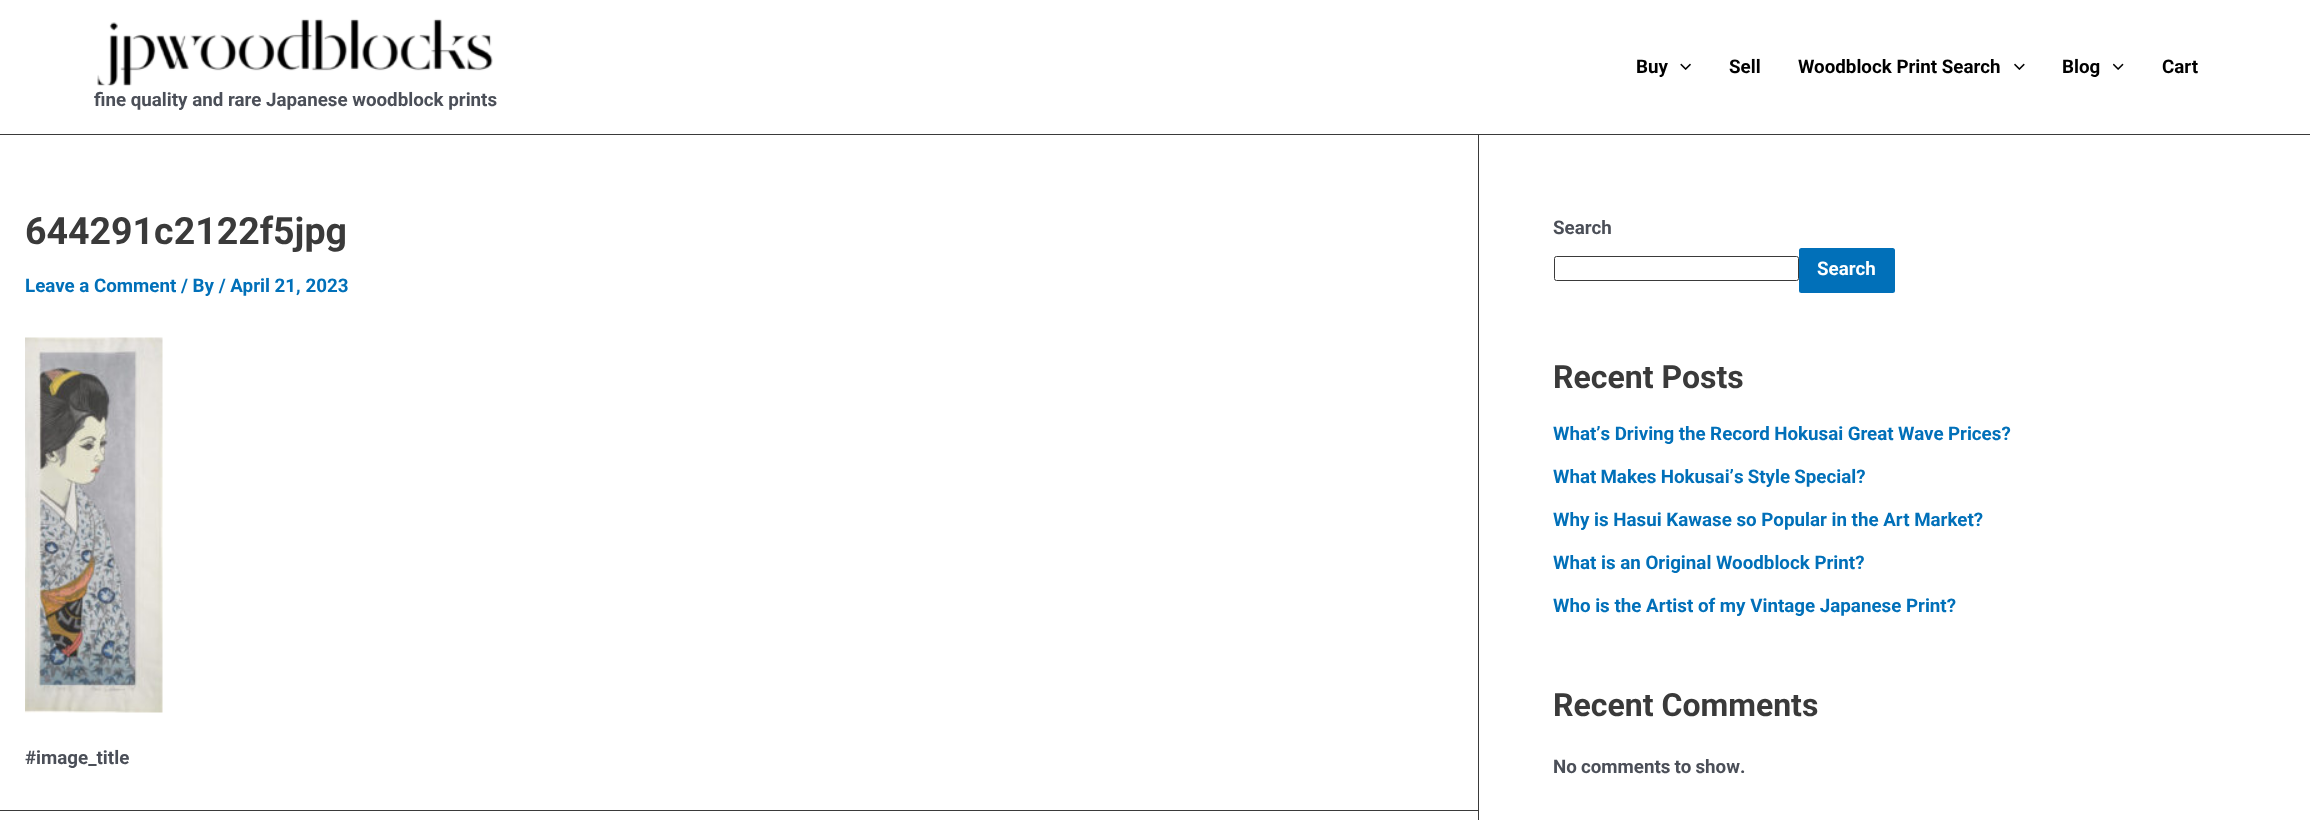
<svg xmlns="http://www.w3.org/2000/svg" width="2310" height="820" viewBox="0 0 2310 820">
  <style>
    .t1 { font: bold 18.75px Roboto; fill: #000; }
    .t2 { font: bold 18.75px Roboto; fill: #4b4f58; }
    .t3 { font: bold 37.5px Roboto; fill: #3a3a3a; }
    .t4 { font: bold 18.75px Roboto; fill: #0170b9; }
    .t5 { font: bold 18.75px Roboto; fill: #fff; }
    .t6 { font: bold 32px Roboto; fill: #3a3a3a; }
  </style>
  <rect width="100%" height="100%" fill="#fff"/>
  <rect x="0" y="134" width="2310" height="1" fill="#3a3a3a"/>
  <text x="1636" y="73" class="t1">Buy</text>
  <image x="1680" y="63" width="11" height="7" href="images/1.png"/>
  <text x="1729" y="73" class="t1">Sell</text>
  <text x="1798" y="73" class="t1">Woodblock Print Search</text>
  <image x="2014" y="63" width="11" height="7" href="images/2.png"/>
  <text x="2062" y="73" class="t1">Blog</text>
  <image x="2113" y="63" width="11" height="7" href="images/3.png"/>
  <text x="2162" y="73" class="t1">Cart</text>
  <image x="97" y="18" width="396" height="68" href="images/4.png"/>
  <text x="94" y="106" class="t2">fine quality and rare Japanese woodblock prints</text>
  <rect x="1478" y="135" width="1" height="685" fill="#3a3a3a"/>
  <text x="25" y="244" class="t3">644291c2122f5jpg</text>
  <text x="25" y="292" class="t4">Leave a Comment / By / April 21, 2023</text>
  <image x="25" y="337" width="138" height="376" href="images/5.png"/>
  <text x="25" y="764" class="t2">#image_title</text>
  <rect x="0" y="810" width="1478" height="1" fill="#3a3a3a"/>
  <text x="1553" y="234" class="t2">Search</text>
  <rect x="1554.5" y="256.5" width="244" height="24" rx="2" fill="none" stroke="#3a3a3a"/>
  <rect x="1799" y="248" width="96" height="45" rx="2.5" fill="#0170b9"/>
  <text x="1817" y="275" class="t5">Search</text>
  <text x="1553" y="388" class="t6">Recent Posts</text>
  <text x="1553" y="440" word-spacing="-0.25" class="t4">What’s Driving the Record Hokusai Great Wave Prices?</text>
  <text x="1553" y="483" word-spacing="-0.5" class="t4">What Makes Hokusai’s Style Special?</text>
  <text x="1553" y="526" class="t4">Why is Hasui Kawase so Popular in the Art Market?</text>
  <text x="1553" y="569" class="t4">What is an Original Woodblock Print?</text>
  <text x="1553" y="612" class="t4">Who is the Artist of my Vintage Japanese Print?</text>
  <text x="1553" y="716" class="t6">Recent Comments</text>
  <text x="1553" y="773" word-spacing="-0.5" class="t2">No comments to show.</text>
</svg>
